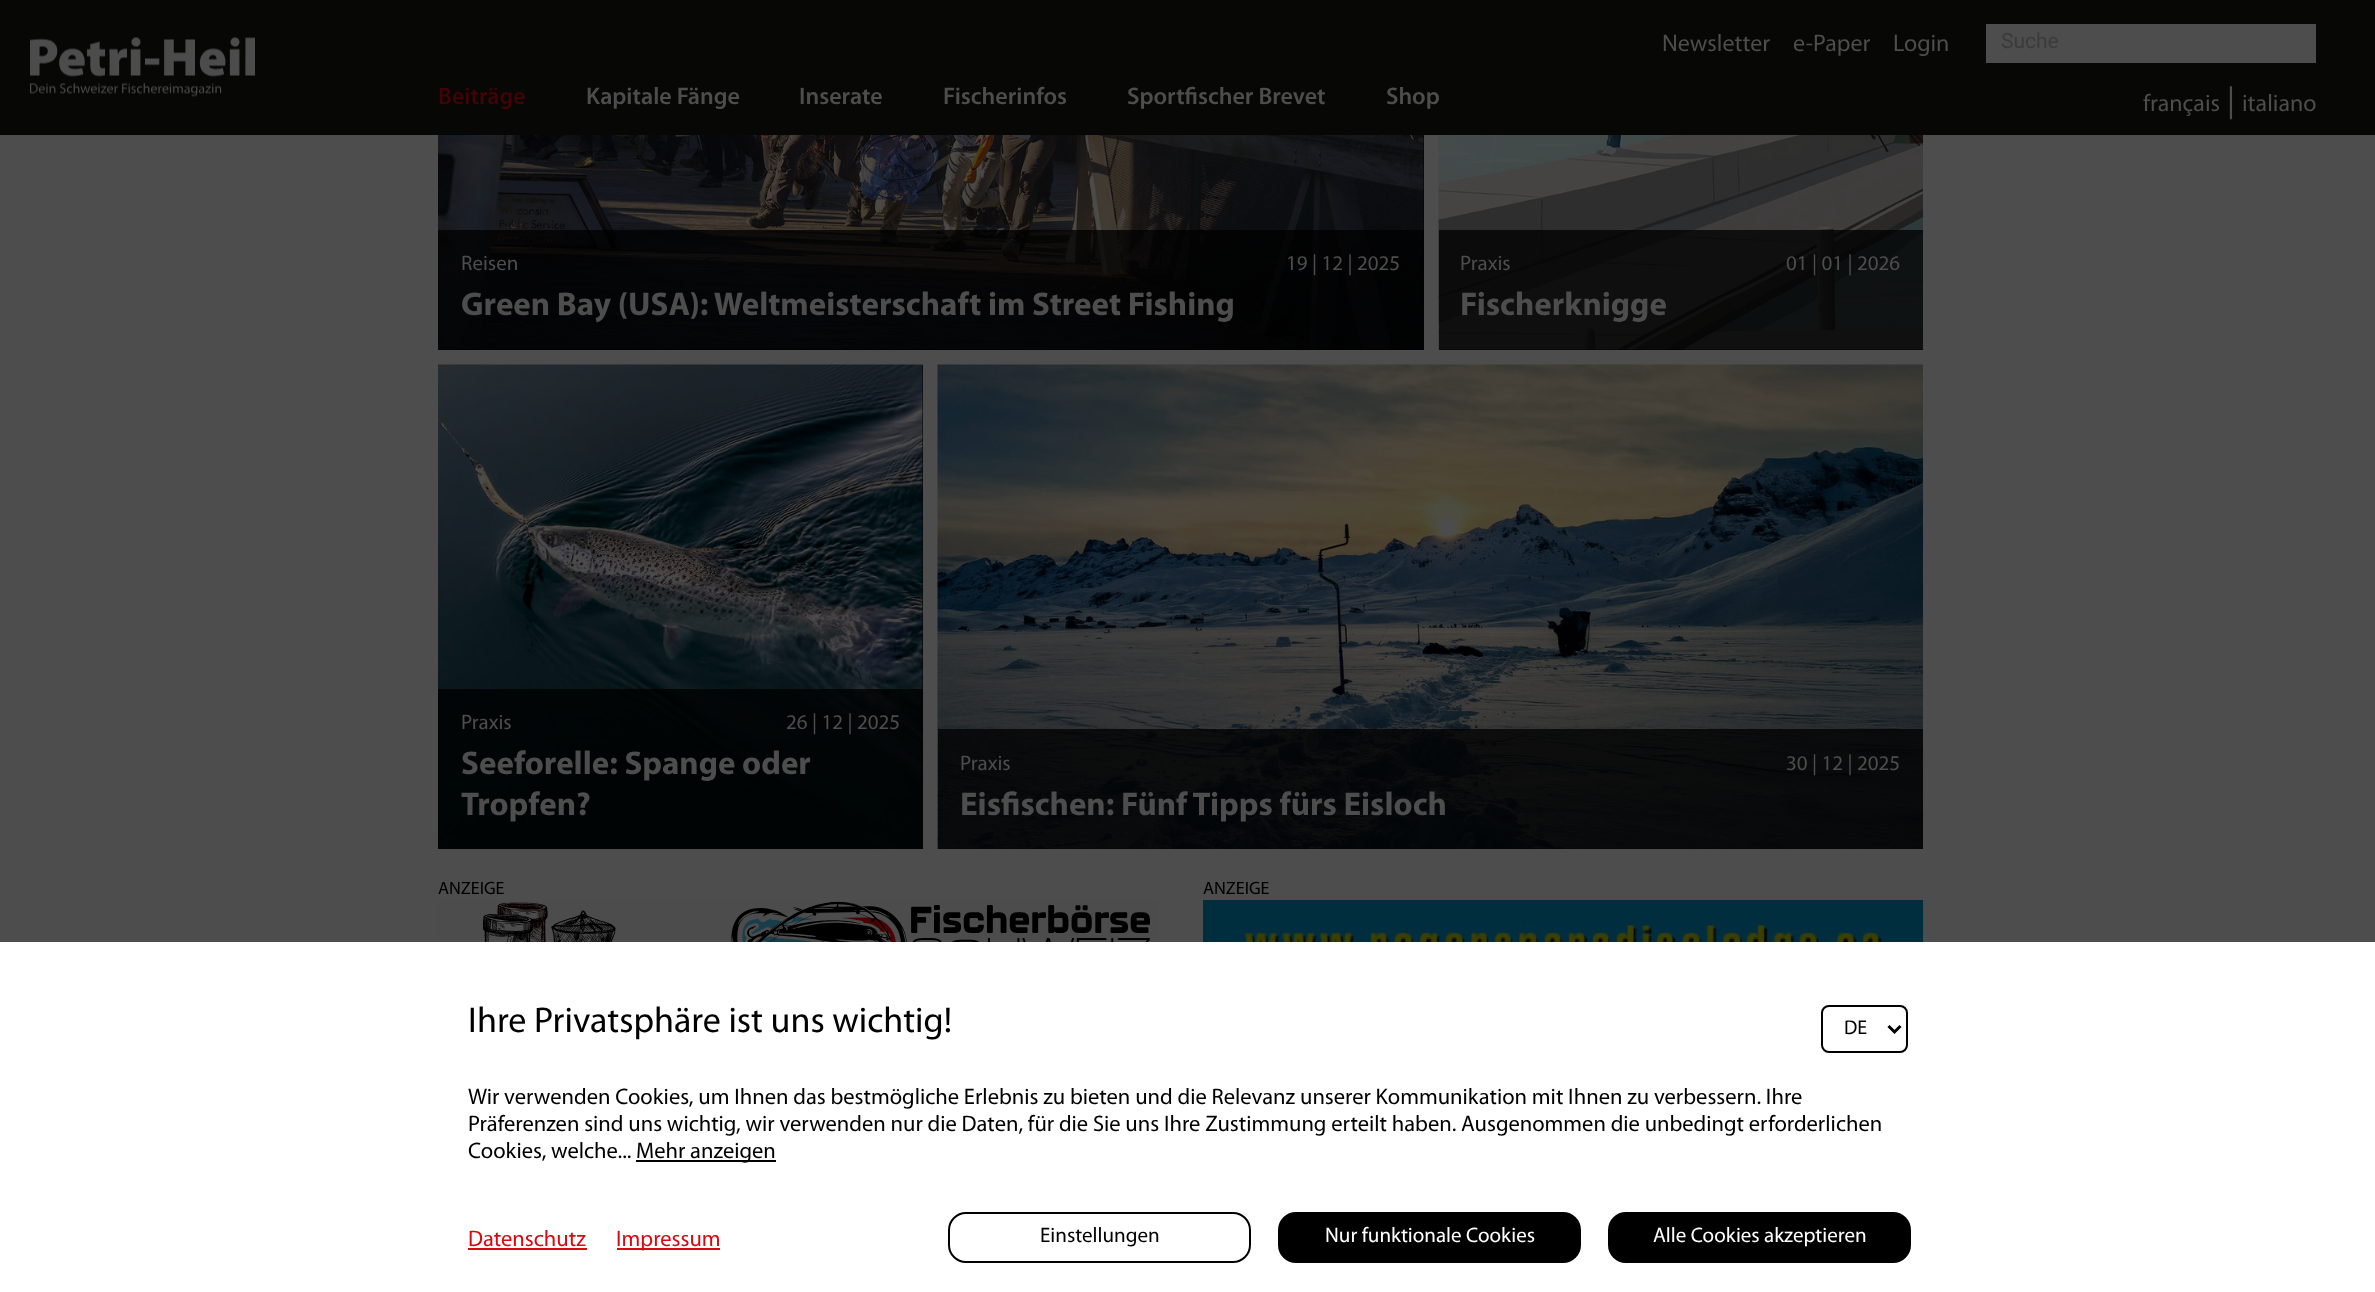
<svg xmlns="http://www.w3.org/2000/svg" width="2375" height="1292" viewBox="0 0 2375 1292">
  <style>
    .t1 { font: 24px Myriad; fill: #4d4d4d; }
    .t2 { font: 21px Roboto; fill: #3b3b3b; }
    .t3 { font: 600 24px Myriad; fill: #410306; }
    .t4 { font: 600 24px Myriad; fill: #4d4d4d; }
    .t5 { font: 33px Myriad; fill: #4d4d4d; }
    .t6 { font: 21px Myriad; fill: #4d4d4d; }
    .t7 { font: bold 33px Myriad; fill: #4d4d4d; }
    .t8 { font: 18px Myriad; fill: #000; }
    .t9 { font: 36px Myriad; fill: #000; }
    .t10 { font: 20px Myriad; fill: #000; }
    .t11 { font: 22.5px Myriad; fill: #000; }
    .t12 { font: 22.5px Myriad; fill: #d70913; }
    .t13 { font: 21px Myriad; fill: #000; }
    .t14 { font: 21px Myriad; fill: #fff; }
  </style>
  <rect width="100%" height="100%" fill="#4d4d4d"/>
  <rect x="0" y="0" width="2375" height="135" fill="#070706"/>
  <image x="30" y="37" width="225" height="60" href="images/1.png"/>
  <text x="1662" y="51" class="t1">Newsletter</text>
  <text x="1793" y="51" class="t1">e-Paper</text>
  <text x="1893" y="51" class="t1">Login</text>
  <rect x="1986" y="24" width="330" height="39" fill="#4d4d4d"/>
  <text x="2001" y="48" class="t2">Suche</text>
  <text x="438" y="104" class="t3">Beiträge</text>
  <text x="586" y="104" class="t4">Kapitale Fänge</text>
  <text x="799" y="104" class="t4">Inserate</text>
  <text x="943" y="104" class="t4">Fischerinfos</text>
  <text x="1127" y="104" class="t4">Sportfischer Brevet</text>
  <text x="1386" y="104" class="t4">Shop</text>
  <text x="2143" y="111" class="t1">français</text>
  <text x="2227" y="111" class="t5">|</text>
  <text x="2242" y="111" class="t1">italiano</text>
  <rect x="438" y="135" width="986" height="215" fill="#000"/>
  <image x="438" y="135" width="986" height="215" href="images/2.png"/>
  <rect x="438" y="230" width="986" height="120" fill="#000000bf"/>
  <text x="461" y="270" class="t6">Reisen</text>
  <text x="1286" y="270" class="t6">19 | 12 | 2025</text>
  <text x="461" y="315" class="t7">Green Bay (USA): Weltmeisterschaft im Street Fishing</text>
  <rect x="1439" y="349" width="484" height="1" fill="#000"/>
  <image x="1438" y="135" width="485" height="215" href="images/3.png"/>
  <rect x="1439" y="230" width="484" height="120" fill="#000000bf"/>
  <text x="1460" y="270" class="t6">Praxis</text>
  <text x="1786" y="270" class="t6">01 | 01 | 2026</text>
  <text x="1460" y="315" class="t7">Fischerknigge</text>
  <rect x="922" y="365" width="1" height="484" fill="#000"/>
  <image x="438" y="364" width="485" height="485" href="images/4.png"/>
  <rect x="438" y="689" width="485" height="160" fill="#000000bf"/>
  <text x="461" y="729" class="t6">Praxis</text>
  <text x="786" y="729" class="t6">26 | 12 | 2025</text>
  <text x="461" y="774" class="t7">Seeforelle: Spange oder</text>
  <text x="461" y="815" class="t7">Tropfen?</text>
  <image x="937" y="364" width="986" height="485" href="images/5.png"/>
  <rect x="938" y="729" width="985" height="120" fill="#000000bf"/>
  <text x="960" y="770" class="t6">Praxis</text>
  <text x="1786" y="770" class="t6">30 | 12 | 2025</text>
  <text x="960" y="815" class="t7">Eisfischen: Fünf Tipps fürs Eisloch</text>
  <text x="438" y="894" class="t8">ANZEIGE</text>
  <image x="438" y="901" width="720" height="41" href="images/6.png"/>
  <text x="1203" y="894" class="t8">ANZEIGE</text>
  <image x="1203" y="900" width="720" height="42" href="images/7.png"/>
  <rect x="0" y="942" width="2375" height="350" fill="#fff"/>
  <text x="468" y="1032" class="t9">Ihre Privatsphäre ist uns wichtig!</text>
  <rect x="1822" y="1006" width="85" height="46" rx="7" fill="none" stroke="#000" stroke-width="2"/>
  <path d="M1888.5 1026L1894.5 1032L1900.5 1026" fill="none" stroke="#000" stroke-width="3"/>
  <text x="1844" y="1034" class="t10">DE</text>
  <text x="468" y="1104" class="t11">Wir verwenden Cookies, um Ihnen das bestmögliche Erlebnis zu bieten und die Relevanz unserer Kommunikation mit Ihnen zu verbessern. Ihre</text>
  <text x="468" y="1131" class="t11">Präferenzen sind uns wichtig, wir verwenden nur die Daten, für die Sie uns Ihre Zustimmung erteilt haben. Ausgenommen die unbedingt erforderlichen</text>
  <text x="468" y="1158" class="t11">Cookies, welche...</text>
  <rect x="636" y="1160" width="140" height="2" fill="#000"/>
  <text x="636" y="1158" class="t11">Mehr anzeigen</text>
  <text x="468" y="1246" class="t12">Datenschutz</text>
  <rect x="468" y="1248" width="119" height="2" fill="#d70913"/>
  <rect x="617" y="1248" width="103" height="2" fill="#d70913"/>
  <text x="616" y="1246" class="t12">Impressum</text>
  <rect x="949" y="1213" width="301" height="49" rx="17" fill="none" stroke="#000" stroke-width="2"/>
  <text x="1040" y="1242" class="t13">Einstellungen</text>
  <rect x="1279" y="1213" width="301" height="49" rx="17" fill="#000" stroke="#000" stroke-width="2"/>
  <text x="1325" y="1242" class="t14">Nur funktionale Cookies</text>
  <rect x="1609" y="1213" width="301" height="49" rx="17" fill="#000" stroke="#000" stroke-width="2"/>
  <text x="1653" y="1242" class="t14">Alle Cookies akzeptieren</text>
</svg>
